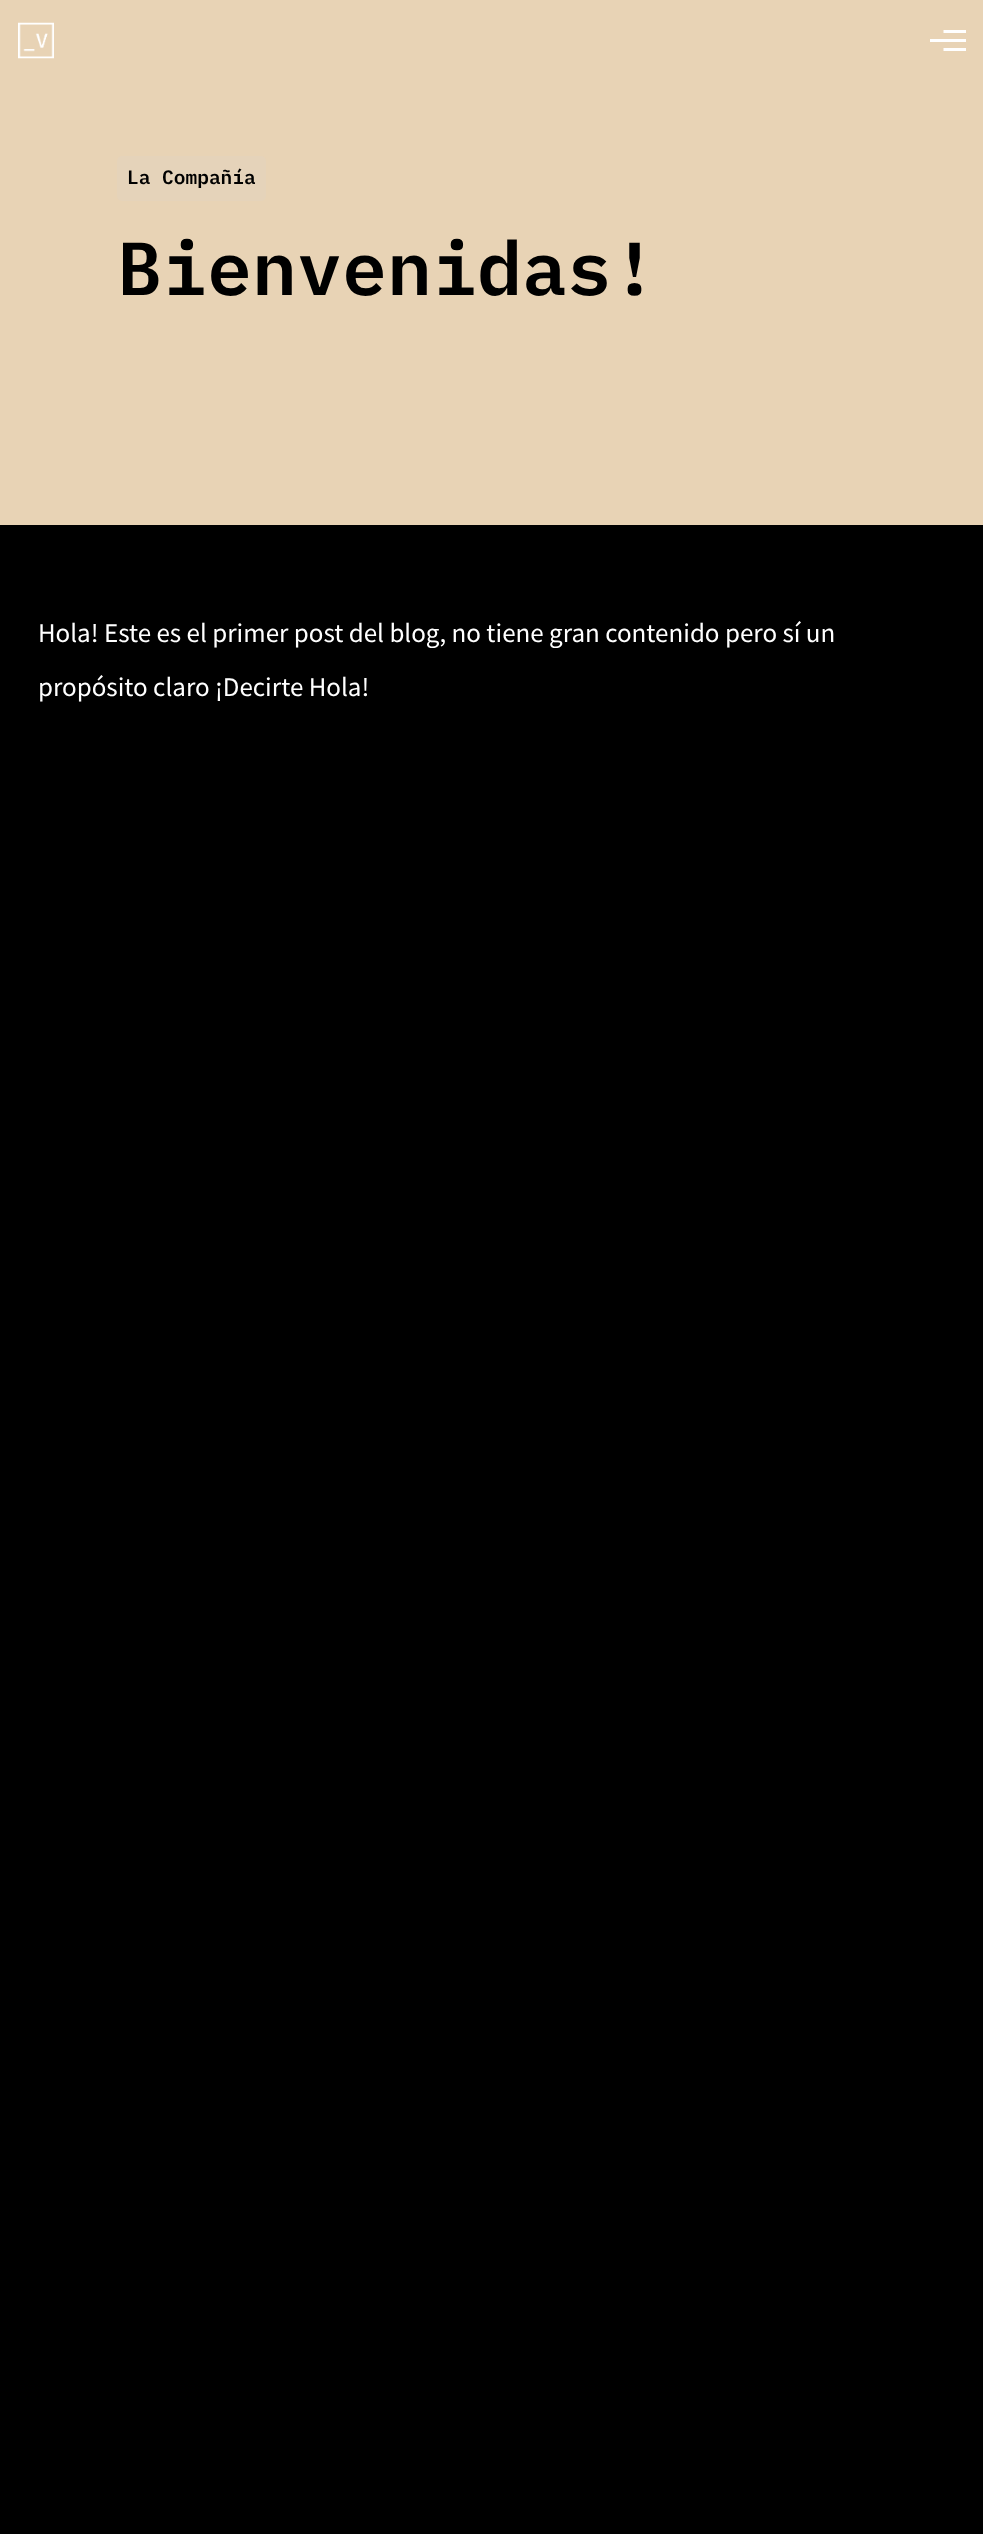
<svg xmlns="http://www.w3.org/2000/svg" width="983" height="2534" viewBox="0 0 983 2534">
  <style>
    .t1 { font: 600 19.5px IBM Plex Mono; fill: #000; }
    .t2 { font: 600 75px IBM Plex Mono; fill: #000; }
    .t3 { font: 27px Source Sans Pro; fill: #fff; }
  </style>
  <rect width="100%" height="100%" fill="#000"/>
  <rect x="0" y="0" width="983" height="525" fill="#e8d3b5"/>
  <image x="18" y="22" width="36" height="37" href="images/1.png"/>
  <path d="M966 48V51H943.5V48ZM966 39V42H930V39ZM966 30V33H943.5V30Z" fill="#fff"/>
  <rect x="117" y="156" width="149" height="45" rx="5" fill="#e5d3ba"/>
  <text x="127" y="184" class="t1">La Compañía</text>
  <text x="117" y="295" class="t2">Bienvenidas!</text>
  <text x="38" y="642" class="t3">Hola! Este es el primer post del blog, no tiene gran contenido pero sí un</text>
  <text x="38" y="696" class="t3">propósito claro ¡Decirte Hola!</text>
</svg>
